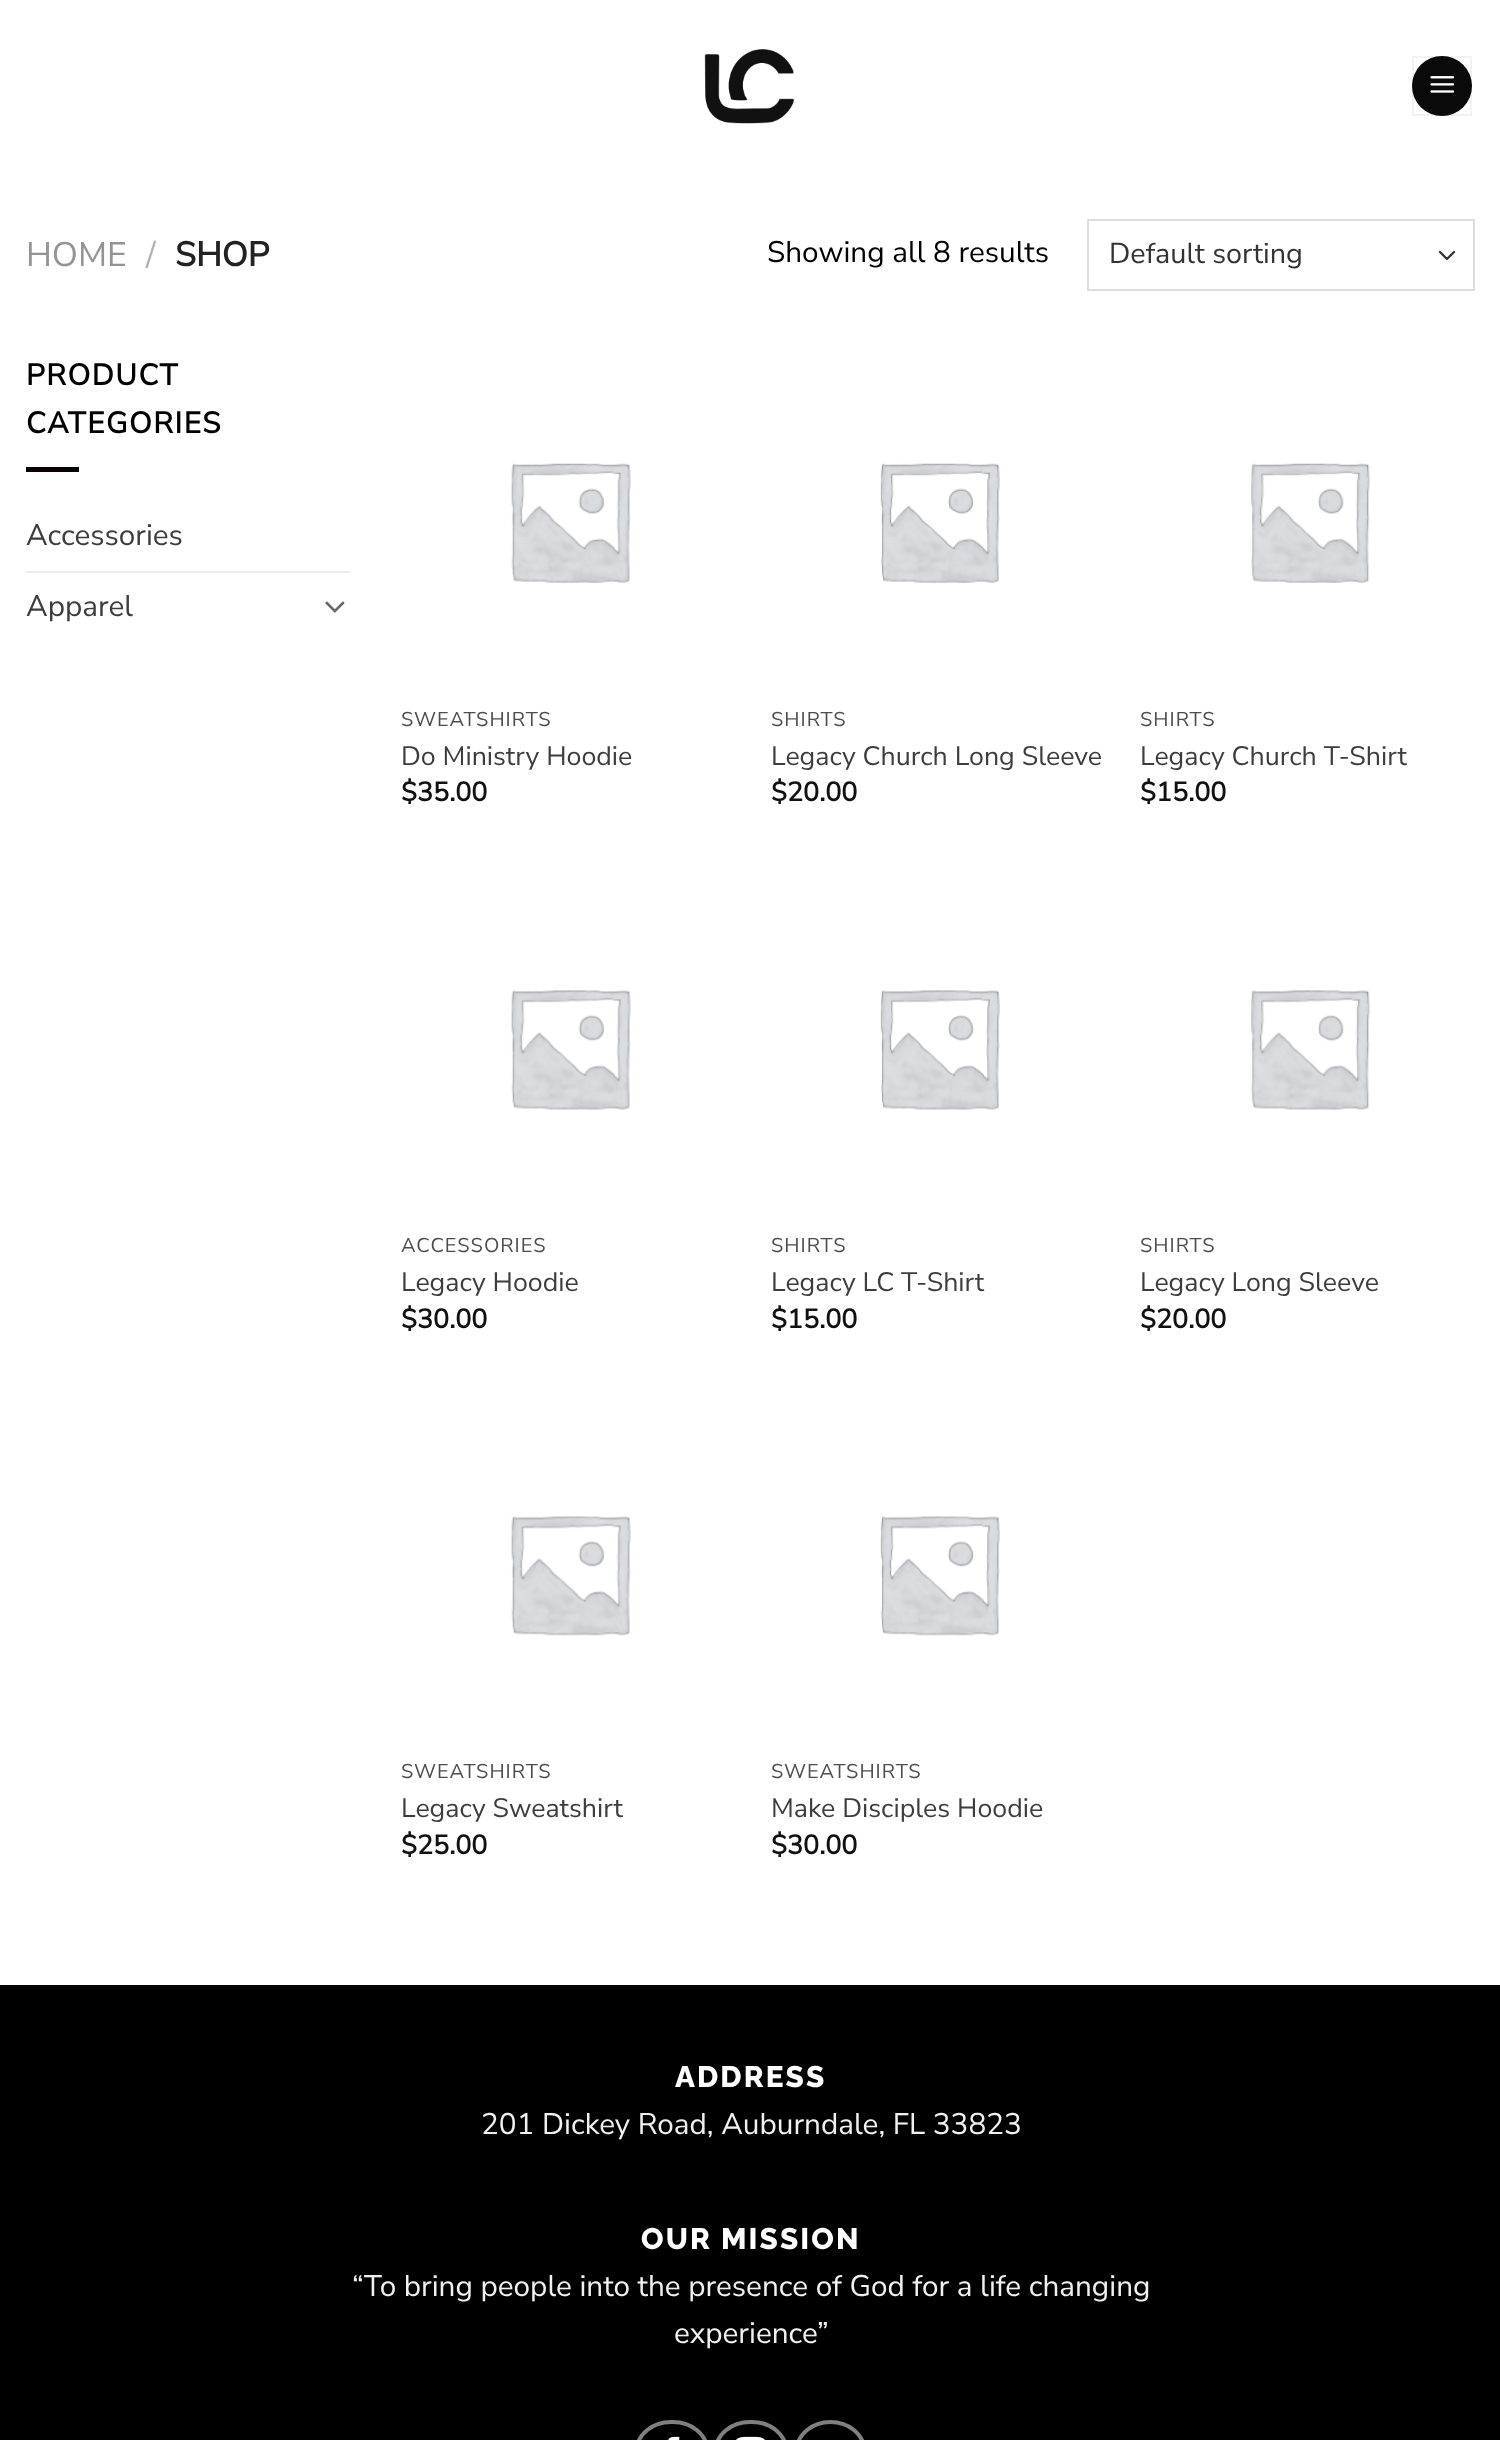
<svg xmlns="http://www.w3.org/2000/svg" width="1500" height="2440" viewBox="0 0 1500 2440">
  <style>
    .t1 { font: 200 34px Nunito Sans; fill: #949494; }
    .t2 { font: 200 34px Nunito Sans; fill: #b2b2b2; }
    .t3 { font: bold 34px Nunito Sans; fill: #222; }
    .t4 { font: 200 29.7px Nunito Sans; fill: #000; }
    .t5 { font: 200 28.75px Nunito Sans; fill: #333; }
    .t6 { font: bold 29.7px Nunito Sans; letter-spacing: 1.5px; fill: #000; }
    .t7 { font: 200 29.7px Nunito Sans; fill: #3d3d3d; }
    .t8 { font: 200 20px Nunito Sans; letter-spacing: 1px; fill: #4d4d4d; }
    .t9 { font: 200 26.75px Nunito Sans; fill: #3d3d3d; }
    .t10 { font: bold 26.75px Nunito Sans; fill: #111; }
    .t11 { font: 800 29.7px Raleway; letter-spacing: 2.1px; fill: #fff; }
    .t12 { font: 200 29.7px Nunito Sans; fill: #f1f1f1; }
  </style>
  <rect width="100%" height="100%" fill="#fff"/>
  <image x="704" y="49" width="90" height="75" href="images/1.png"/>
  <circle cx="1442" cy="86" r="30" fill="#0a0a0a"/>
  <rect x="1413" y="57" width="58" height="58" fill="none" stroke="#0000000d" stroke-width="2"/>
  <image x="1430" y="76" width="25" height="17" href="images/2.png"/>
  <text x="26" y="266" class="t1">HOME</text>
  <text x="146" y="266" class="t2">/</text>
  <text x="175" y="266" class="t3">SHOP</text>
  <text x="767" y="262" class="t4">Showing all 8 results</text>
  <path d="M1440 252L1447 259L1454 252" fill="none" stroke="#333" stroke-width="2.3" stroke-linecap="round" stroke-linejoin="round"/>
  <rect x="1088" y="220" width="386" height="70" fill="none" stroke="#ddd" stroke-width="2"/>
  <text x="1109" y="263" class="t5">Default sorting</text>
  <text x="26" y="385" class="t6">PRODUCT</text>
  <text x="26" y="433" class="t6">CATEGORIES</text>
  <rect x="26" y="467" width="53" height="5" fill="#0a0000"/>
  <text x="26" y="545" class="t7">Accessories</text>
  <rect x="26" y="571" width="324" height="2" fill="#ececec"/>
  <text x="26" y="616" class="t7">Apparel</text>
  <image x="325" y="601" width="20" height="12" href="images/3.png"/>
  <image x="511" y="463" width="120" height="120" href="images/4.png"/>
  <text x="401" y="726" class="t8">SWEATSHIRTS</text>
  <text x="401" y="765" class="t9">Do Ministry Hoodie</text>
  <text x="401" y="801" class="t10">$35.00</text>
  <image x="880" y="463" width="120" height="120" href="images/5.png"/>
  <text x="771" y="726" class="t8">SHIRTS</text>
  <text x="771" y="765" class="t9">Legacy Church Long Sleeve</text>
  <text x="771" y="801" class="t10">$20.00</text>
  <image x="1251" y="463" width="119" height="120" href="images/6.png"/>
  <text x="1140" y="726" class="t8">SHIRTS</text>
  <text x="1140" y="765" class="t9">Legacy Church T-Shirt</text>
  <text x="1140" y="801" class="t10">$15.00</text>
  <image x="511" y="990" width="120" height="120" href="images/7.png"/>
  <text x="401" y="1252" class="t8">ACCESSORIES</text>
  <text x="401" y="1291" class="t9">Legacy Hoodie</text>
  <text x="401" y="1328" class="t10">$30.00</text>
  <image x="880" y="990" width="120" height="120" href="images/8.png"/>
  <text x="771" y="1252" class="t8">SHIRTS</text>
  <text x="771" y="1291" class="t9">Legacy LC T-Shirt</text>
  <text x="771" y="1328" class="t10">$15.00</text>
  <image x="1251" y="990" width="119" height="120" href="images/9.png"/>
  <text x="1140" y="1252" class="t8">SHIRTS</text>
  <text x="1140" y="1291" class="t9">Legacy Long Sleeve</text>
  <text x="1140" y="1328" class="t10">$20.00</text>
  <image x="511" y="1516" width="120" height="120" href="images/10.png"/>
  <text x="401" y="1778" class="t8">SWEATSHIRTS</text>
  <text x="401" y="1817" class="t9">Legacy Sweatshirt</text>
  <text x="401" y="1854" class="t10">$25.00</text>
  <image x="880" y="1516" width="120" height="120" href="images/11.png"/>
  <text x="771" y="1778" class="t8">SWEATSHIRTS</text>
  <text x="771" y="1817" class="t9">Make Disciples Hoodie</text>
  <text x="771" y="1854" class="t10">$30.00</text>
  <rect x="0" y="1985" width="1500" height="455" fill="#000"/>
  <text x="675" y="2087" class="t11">ADDRESS</text>
  <text x="481" y="2134" class="t12">201 Dickey Road, Auburndale, FL 33823</text>
  <text x="641" y="2249" class="t11">OUR MISSION</text>
  <text x="352" y="2296" class="t12">“To bring people into the presence of God for a life changing</text>
  <text x="674" y="2343" class="t12">experience”</text>
  <rect x="637" y="2422" width="70" height="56" rx="34" fill="none" stroke="#808080" stroke-width="4"/>
  <image x="668" y="2436" width="12" height="4" href="images/12.png"/>
  <rect x="716" y="2422" width="70" height="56" rx="34" fill="none" stroke="#808080" stroke-width="4"/>
  <image x="736" y="2436" width="29" height="4" href="images/13.png"/>
  <rect x="797" y="2422" width="67" height="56" rx="33.5" fill="none" stroke="#808080" stroke-width="4"/>
</svg>
